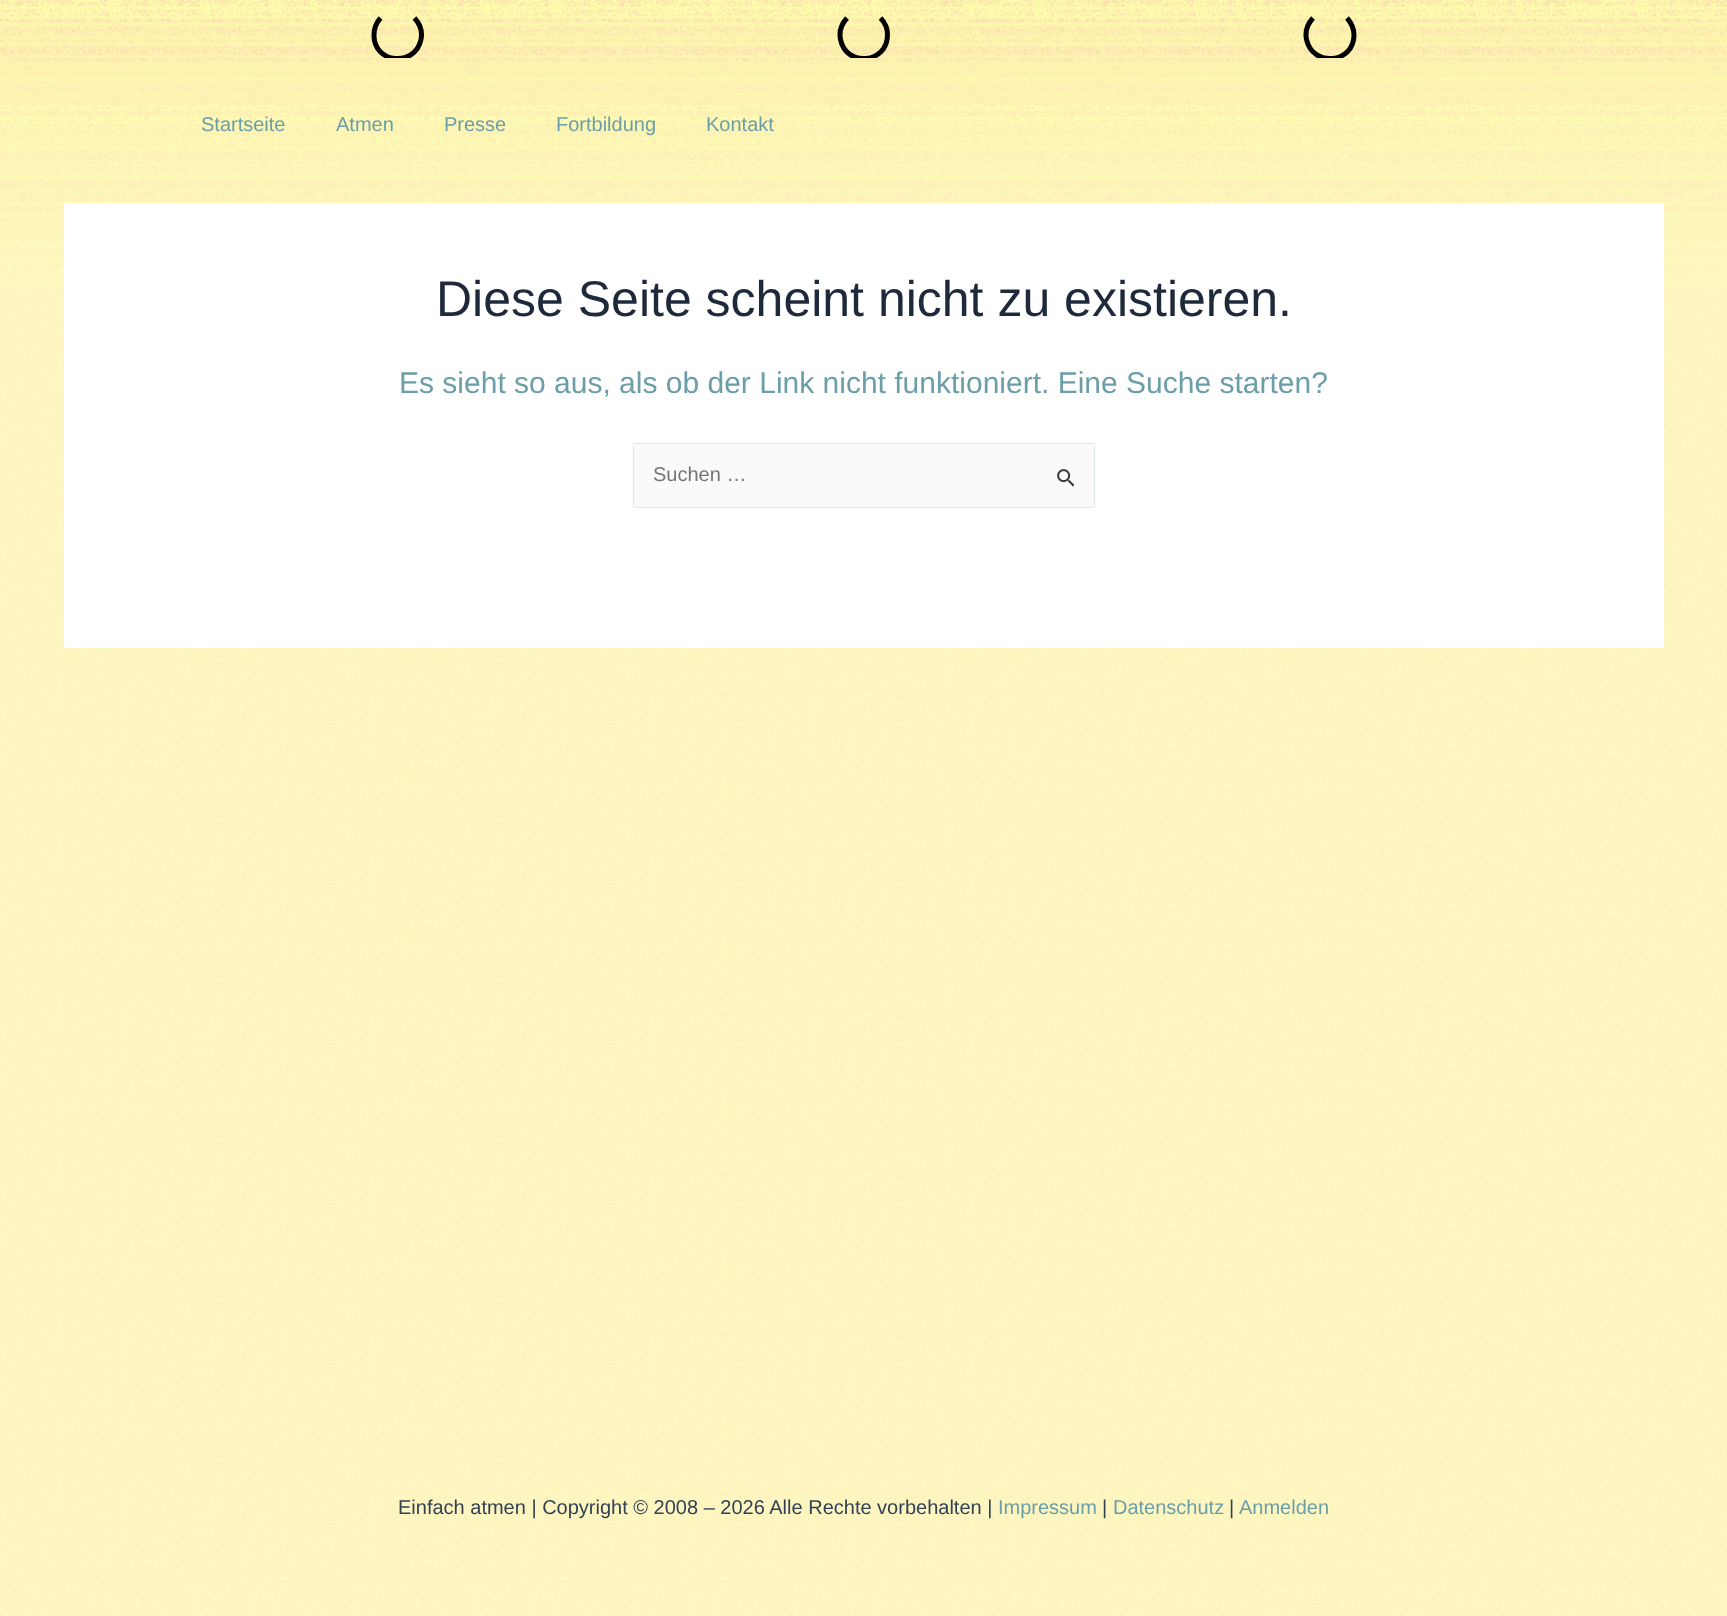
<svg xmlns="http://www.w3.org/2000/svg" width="1727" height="1616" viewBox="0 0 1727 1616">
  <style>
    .t1 { font: 20px Liberation Sans; fill: #6b9ea8; }
    .t2 { font: 50px Liberation Sans; fill: #1e293b; }
    .t3 { font: 30px Liberation Sans; fill: #6b9ea8; }
    .t4 { font: 20px Liberation Sans; fill: #757575; }
    .t5 { font: 20px Liberation Sans; fill: #334155; }
  </style>
  <defs>
    <clipPath id="clip1"><rect x="164" y="13" width="1400" height="45"/></clipPath>
  </defs>
  <rect width="100%" height="100%" fill="#fff"/>
  <image x="0" y="0" width="1727" height="1616" href="images/1.png"/>
  <g clip-path="url(#clip1)">
    <path d="M414.5 18C420 24 422.5 32 421 39.5C415 67.5 373.5 63.5 374 35C374 28.5 376.5 22.5 380.5 18" fill="none" stroke="#000" stroke-width="5"/>
    <path d="M880.5 18C885 22.5 887.5 28.5 887.5 35C887.5 63.5 846 67.5 840.5 39.5C839 32 841.5 24 847 18" fill="none" stroke="#000" stroke-width="5"/>
    <path d="M1347 18C1351 22.5 1354 28.5 1354 35C1354 63.5 1312.5 67.5 1306.5 39.5C1305 32 1307.5 24 1313 18" fill="none" stroke="#000" stroke-width="5"/>
  </g>
  <text x="201" y="131" class="t1">Startseite</text>
  <text x="336" y="131" class="t1">Atmen</text>
  <text x="444" y="131" class="t1">Presse</text>
  <text x="556" y="131" class="t1">Fortbildung</text>
  <text x="706" y="131" class="t1">Kontakt</text>
  <rect x="64" y="203" width="1600" height="445" fill="#fff"/>
  <text x="436" y="316" class="t2">Diese Seite scheint nicht zu existieren.</text>
  <text x="399" y="393" class="t3">Es sieht so aus, als ob der Link nicht funktioniert. Eine Suche starten?</text>
  <rect x="633.5" y="443.5" width="461" height="64" rx="2" fill="#fafafa" stroke="#e2e8f0"/>
  <text x="653" y="481" class="t4">Suchen …</text>
  <image x="1057" y="469" width="17" height="18" href="images/2.png"/>
  <text x="398" y="1514" class="t5">Einfach atmen | Copyright © 2008 – 2026 Alle Rechte vorbehalten |</text>
  <text x="998" y="1514" class="t1">Impressum</text>
  <text x="1102" y="1514" class="t5">|</text>
  <text x="1113" y="1514" class="t1">Datenschutz</text>
  <text x="1229" y="1514" class="t5">|</text>
  <text x="1239" y="1514" class="t1">Anmelden</text>
</svg>
